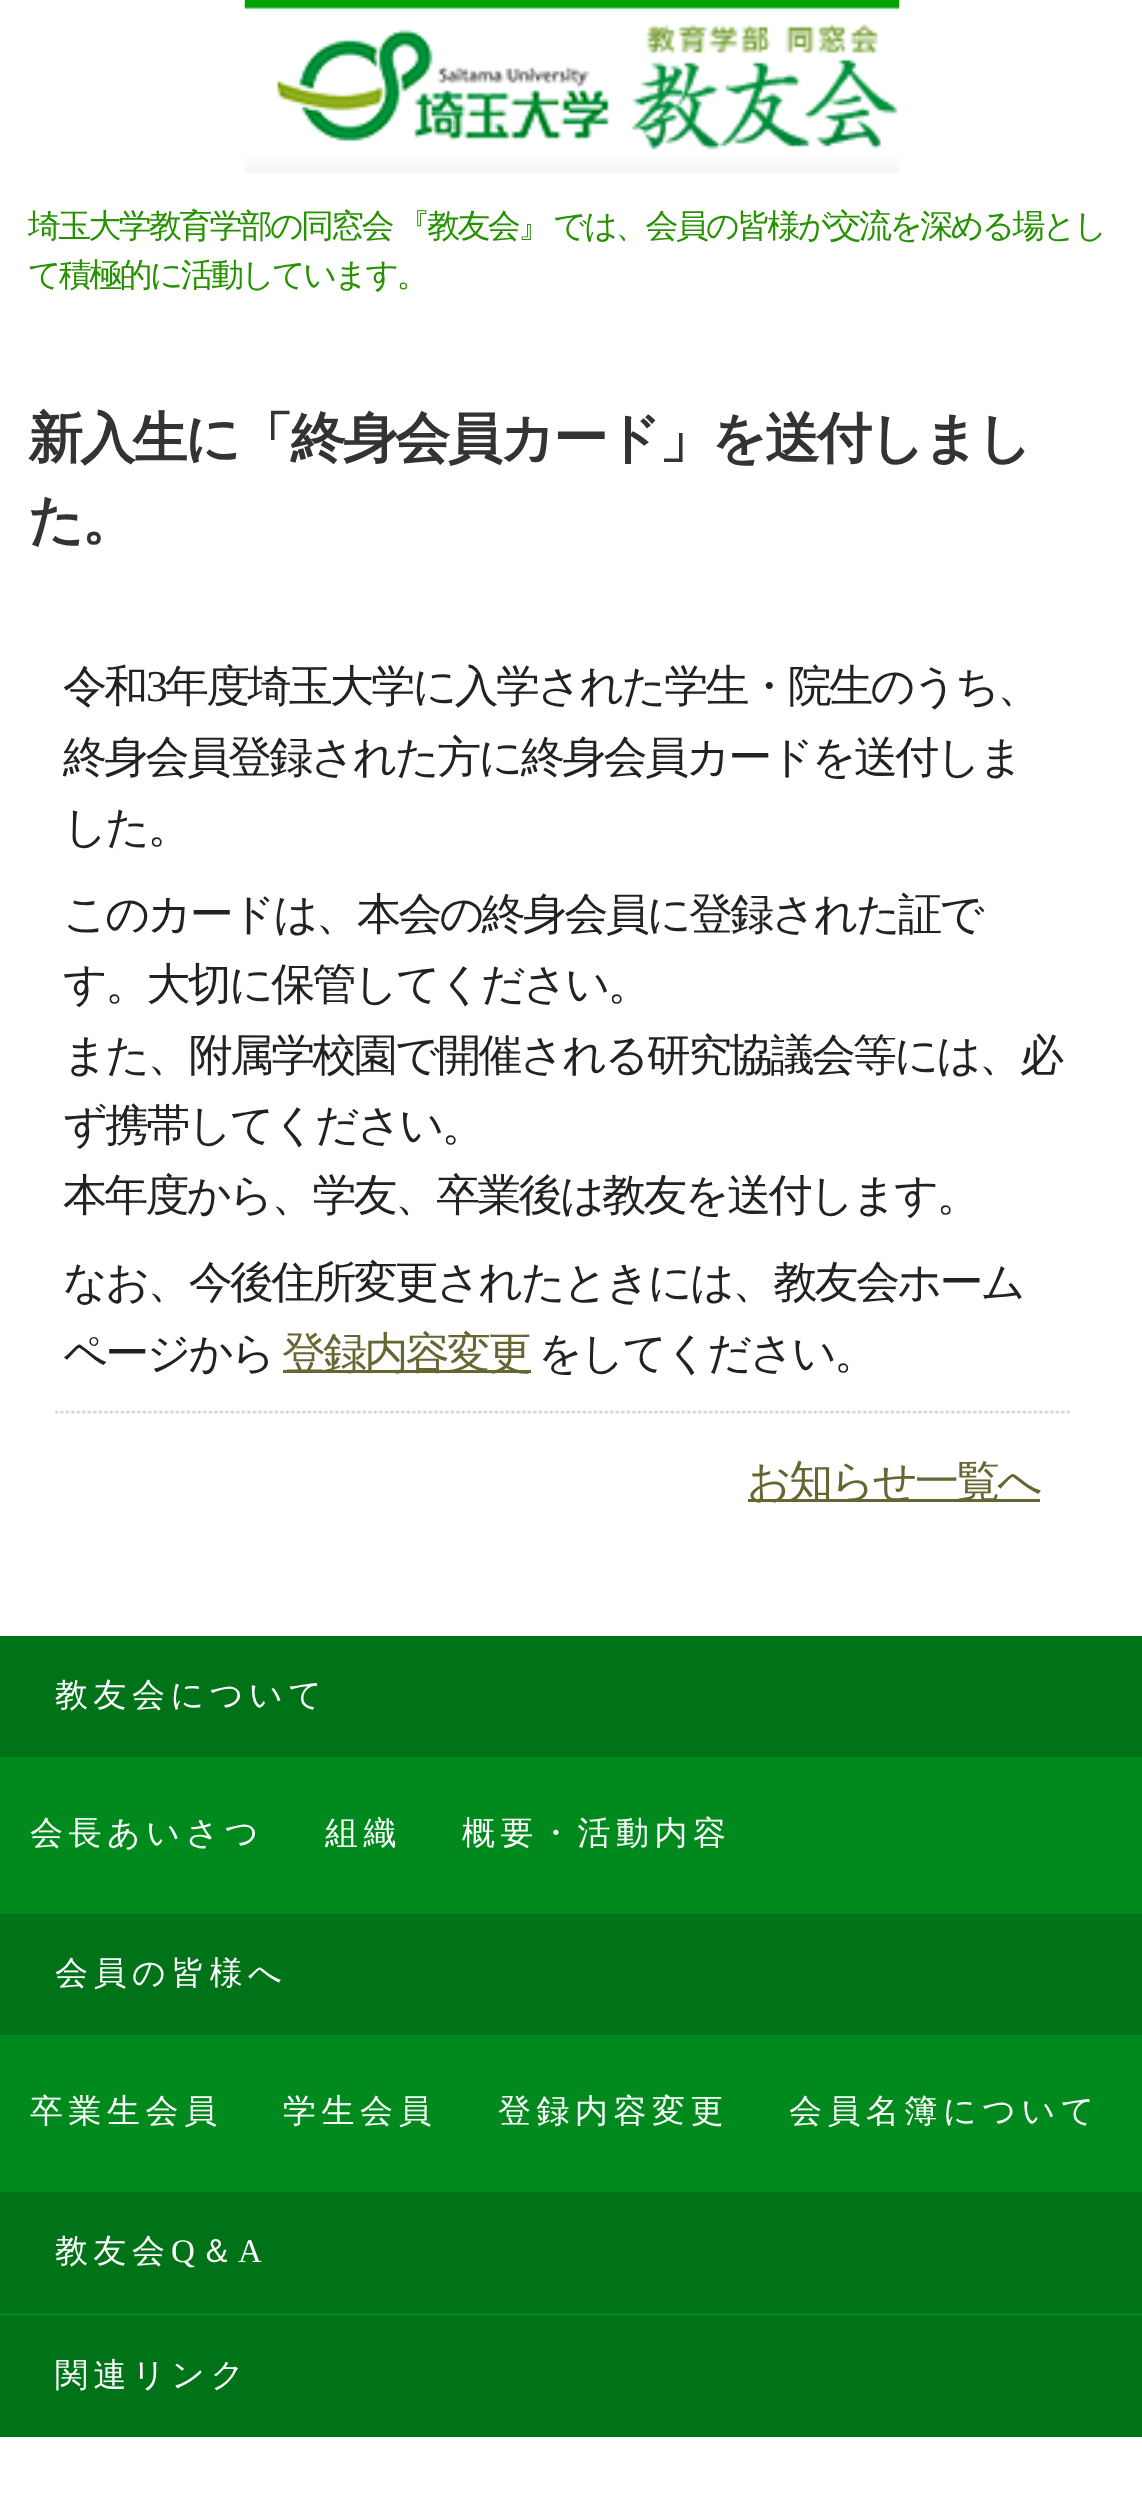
<svg xmlns="http://www.w3.org/2000/svg" width="1142" height="2512" viewBox="0 0 1142 2512">
  <style>
    .t1 { font: 500 33px WenQuanYi Zen Hei; letter-spacing: -2.75px; fill: #269200; }
    .t2 { font: bold 55px WenQuanYi Zen Hei; letter-spacing: -2.75px; fill: #333; }
    .t3 { font: 500 44px WenQuanYi Zen Hei; letter-spacing: -2.75px; fill: #222; }
    .t4 { font: 44px Liberation Serif; letter-spacing: -2.75px; fill: #222; }
    .t5 { font: 500 44px WenQuanYi Zen Hei; letter-spacing: -2.75px; fill: #663; }
    .t6 { font: 500 33px WenQuanYi Zen Hei; letter-spacing: 5.5px; fill: #fff; }
    .t7 { font: 33px Liberation Serif; letter-spacing: 5.5px; fill: #fff; }
  </style>
  <rect width="100%" height="100%" fill="#fff"/>
  <image x="244" y="0" width="656" height="173" href="images/1.png"/>
  <text x="28" y="237" word-spacing="-2" class="t1">埼玉大学教育学部の同窓会 『教友会』 では、会員の皆様が交流を深める場とし</text>
  <text x="28" y="286" class="t1">て積極的に活動しています。</text>
  <text x="28" y="457" class="t2">新入生に「終身会員カード」を送付しまし</text>
  <text x="28" y="539" class="t2">た。</text>
  <text x="63" y="701" class="t3">令和</text>
  <text x="146" y="701" class="t4">3</text>
  <text x="165" y="701" class="t3">年度埼玉大学に入学された学生・院生のうち、</text>
  <text x="63" y="772" class="t3">終身会員登録された方に終身会員カードを送付しま</text>
  <text x="63" y="842" class="t3">した。</text>
  <text x="63" y="929" class="t3">このカードは、本会の終身会員に登録された証で</text>
  <text x="63" y="999" class="t3">す。大切に保管してください。</text>
  <text x="63" y="1070" class="t3">また、附属学校園で開催される研究協議会等には、必</text>
  <text x="63" y="1140" class="t3">ず携帯してください。</text>
  <text x="63" y="1210" class="t3">本年度から、学友、卒業後は教友を送付します。</text>
  <text x="63" y="1297" class="t3">なお、今後住所変更されたときには、教友会ホーム</text>
  <text x="63" y="1368" class="t3">ページから</text>
  <rect x="283" y="1370" width="248" height="3" fill="#663"/>
  <text x="282" y="1368" class="t5">登録内容変更</text>
  <text x="538" y="1368" class="t3">をしてください。</text>
  <image x="55" y="1410" width="1015" height="4" href="images/2.png"/>
  <rect x="748" y="1499" width="292" height="3" fill="#663"/>
  <text x="747" y="1496" class="t5">お知らせ一覧へ</text>
  <rect x="0" y="1636" width="1142" height="121" fill="#007319"/>
  <text x="55" y="1706" class="t6">教友会について</text>
  <rect x="0" y="1757" width="1142" height="157" fill="#008a1e"/>
  <text x="30" y="1844" class="t6">会長あいさつ</text>
  <text x="325" y="1844" class="t6">組織</text>
  <text x="462" y="1844" class="t6">概要・活動内容</text>
  <rect x="0" y="1914" width="1142" height="121" fill="#007319"/>
  <text x="55" y="1984" class="t6">会員の皆様へ</text>
  <rect x="0" y="2035" width="1142" height="157" fill="#008a1e"/>
  <text x="30" y="2122" class="t6">卒業生会員</text>
  <text x="283" y="2122" class="t6">学生会員</text>
  <text x="498" y="2122" class="t6">登録内容変更</text>
  <text x="789" y="2122" class="t6">会員名簿について</text>
  <rect x="0" y="2192" width="1142" height="121" fill="#007319"/>
  <text x="55" y="2262" class="t6">教友会</text>
  <text x="171" y="2262" class="t7">Q</text>
  <text x="200" y="2262" class="t6">＆</text>
  <text x="238" y="2262" class="t7">A</text>
  <rect x="0" y="2316" width="1142" height="121" fill="#007319"/>
  <rect x="0" y="2313" width="1142" height="3" fill="#008a1e"/>
  <text x="55" y="2386" class="t6">関連リンク</text>
</svg>
